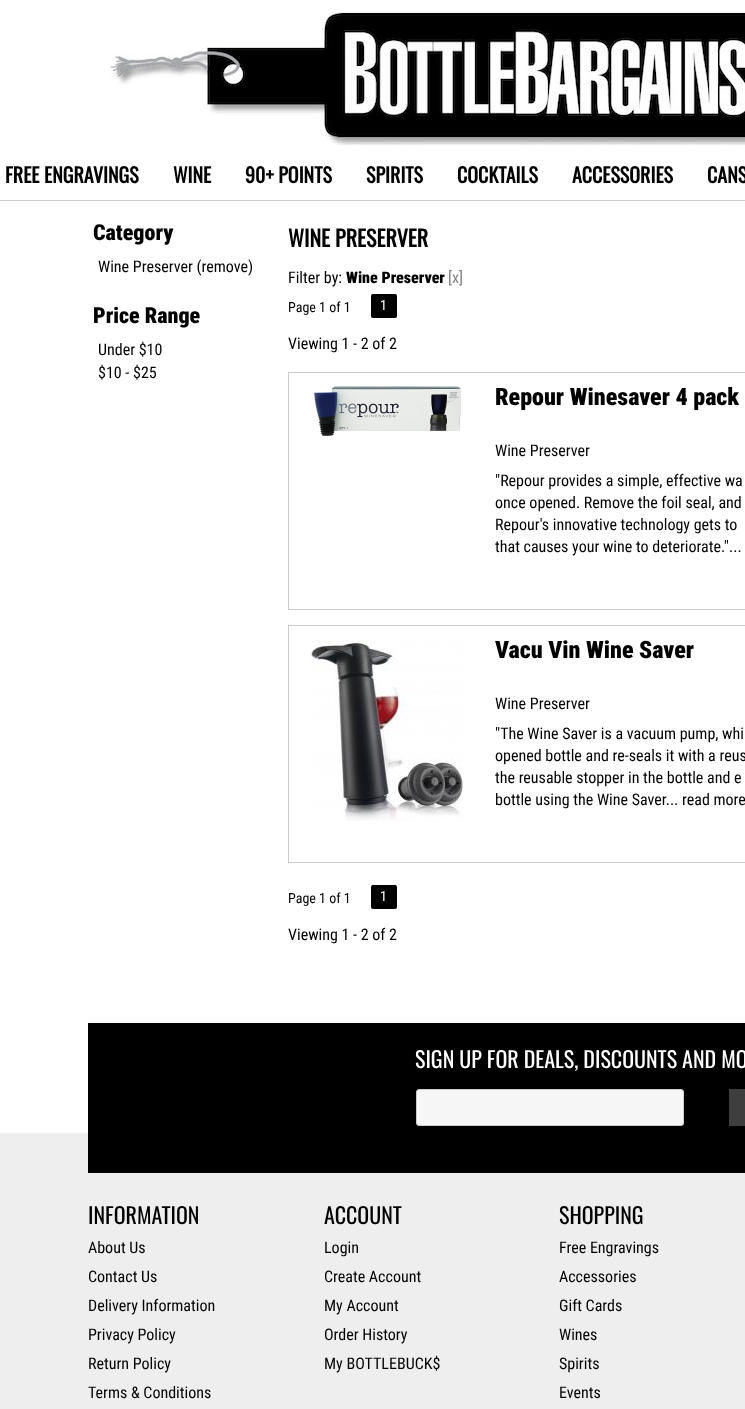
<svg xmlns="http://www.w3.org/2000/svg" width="745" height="1409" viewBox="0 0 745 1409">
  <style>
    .t1 { font: bold 20px Oswald; fill: #000; }
    .t2 { font: 900 22px Roboto Condensed; fill: #000; }
    .t3 { font: 16px Roboto Condensed; fill: #000; }
    .t4 { font: bold 22px Oswald; fill: #000; }
    .t5 { font: 900 16px Roboto Condensed; fill: #000; }
    .t6 { font: 16px Roboto Condensed; fill: #808080; }
    .t7 { font: 14px Roboto Condensed; fill: #000; }
    .t8 { font: 14px Roboto Condensed; fill: #fff; }
    .t9 { font: 900 24px Roboto Condensed; fill: #000; }
    .t10 { font: 22px Oswald; fill: #fff; }
    .t11 { font: 22px Oswald; fill: #000; }
  </style>
  <rect width="100%" height="100%" fill="#fff"/>
  <rect x="0" y="200" width="745" height="1" fill="#ccc"/>
  <image x="110" y="12" width="635" height="133" href="images/1.png"/>
  <text x="5" y="183" class="t1">FREE ENGRAVINGS</text>
  <text x="173" y="183" class="t1">WINE</text>
  <text x="245" y="183" class="t1">90+ POINTS</text>
  <text x="366" y="183" class="t1">SPIRITS</text>
  <text x="457" y="183" class="t1">COCKTAILS</text>
  <text x="572" y="183" class="t1">ACCESSORIES</text>
  <text x="707" y="183" class="t1">CANS</text>
  <text x="93" y="240" class="t2">Category</text>
  <text x="98" y="272" class="t3">Wine Preserver (remove)</text>
  <text x="93" y="323" class="t2">Price Range</text>
  <text x="98" y="355" class="t3">Under $10</text>
  <text x="98" y="378" class="t3">$10 - $25</text>
  <text x="288" y="247" class="t4">WINE PRESERVER</text>
  <text x="288" y="283" class="t3">Filter by:</text>
  <text x="346" y="283" class="t5">Wine Preserver</text>
  <text x="448" y="283" class="t6">[x</text>
  <text x="459" y="283" class="t6">]</text>
  <text x="288" y="312" class="t7">Page 1 of 1</text>
  <rect x="371" y="294" width="26" height="24" rx="2" fill="#000"/>
  <text x="380" y="310" class="t8">1</text>
  <text x="288" y="349" class="t3">Viewing 1 - 2 of 2</text>
  <rect x="288.5" y="372.5" width="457" height="237" fill="none" stroke="#ccc"/>
  <image x="314" y="386" width="147" height="50" href="images/2.png"/>
  <text x="495" y="405" class="t9">Repour Winesaver 4 pack</text>
  <text x="495" y="456" class="t3">Wine Preserver</text>
  <text x="495" y="486" class="t3">"Repour provides a simple, effective wa</text>
  <text x="495" y="508" class="t3">once opened. Remove the foil seal, and</text>
  <text x="495" y="530" class="t3">Repour's innovative technology gets to</text>
  <text x="495" y="552" class="t3">that causes your wine to deteriorate."...</text>
  <rect x="288.5" y="625.5" width="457" height="237" fill="none" stroke="#ccc"/>
  <image x="310" y="639" width="154" height="182" href="images/3.png"/>
  <text x="495" y="658" class="t9">Vacu Vin Wine Saver</text>
  <text x="495" y="709" class="t3">Wine Preserver</text>
  <text x="495" y="739" class="t3">"The Wine Saver is a vacuum pump, whi</text>
  <text x="495" y="761" class="t3">opened bottle and re-seals it with a reus</text>
  <text x="495" y="783" class="t3">the reusable stopper in the bottle and e</text>
  <text x="495" y="805" class="t3">bottle using the Wine Saver... read more</text>
  <text x="288" y="903" class="t7">Page 1 of 1</text>
  <rect x="371" y="885" width="26" height="24" rx="2" fill="#000"/>
  <text x="380" y="901" class="t8">1</text>
  <text x="288" y="940" class="t3">Viewing 1 - 2 of 2</text>
  <rect x="0" y="1133" width="745" height="276" fill="#eee"/>
  <rect x="88" y="1023" width="657" height="150" fill="#000"/>
  <text x="415" y="1068" class="t10">SIGN UP FOR DEALS, DISCOUNTS AND MO</text>
  <rect x="416.5" y="1089.5" width="267" height="36" rx="2.5" fill="#f6f6f6" stroke="#ccc"/>
  <rect x="729" y="1089" width="16" height="37" fill="#3e3e3f"/>
  <text x="88" y="1224" class="t11">INFORMATION</text>
  <text x="88" y="1253" class="t3">About Us</text>
  <text x="88" y="1282" class="t3">Contact Us</text>
  <text x="88" y="1311" class="t3">Delivery Information</text>
  <text x="88" y="1340" class="t3">Privacy Policy</text>
  <text x="88" y="1369" class="t3">Return Policy</text>
  <text x="88" y="1398" class="t3">Terms &amp; Conditions</text>
  <text x="324" y="1224" class="t11">ACCOUNT</text>
  <text x="324" y="1253" class="t3">Login</text>
  <text x="324" y="1282" class="t3">Create Account</text>
  <text x="324" y="1311" class="t3">My Account</text>
  <text x="324" y="1340" class="t3">Order History</text>
  <text x="324" y="1369" class="t3">My BOTTLEBUCK$</text>
  <text x="559" y="1224" class="t11">SHOPPING</text>
  <text x="559" y="1253" class="t3">Free Engravings</text>
  <text x="559" y="1282" class="t3">Accessories</text>
  <text x="559" y="1311" class="t3">Gift Cards</text>
  <text x="559" y="1340" class="t3">Wines</text>
  <text x="559" y="1369" class="t3">Spirits</text>
  <text x="559" y="1398" class="t3">Events</text>
</svg>
